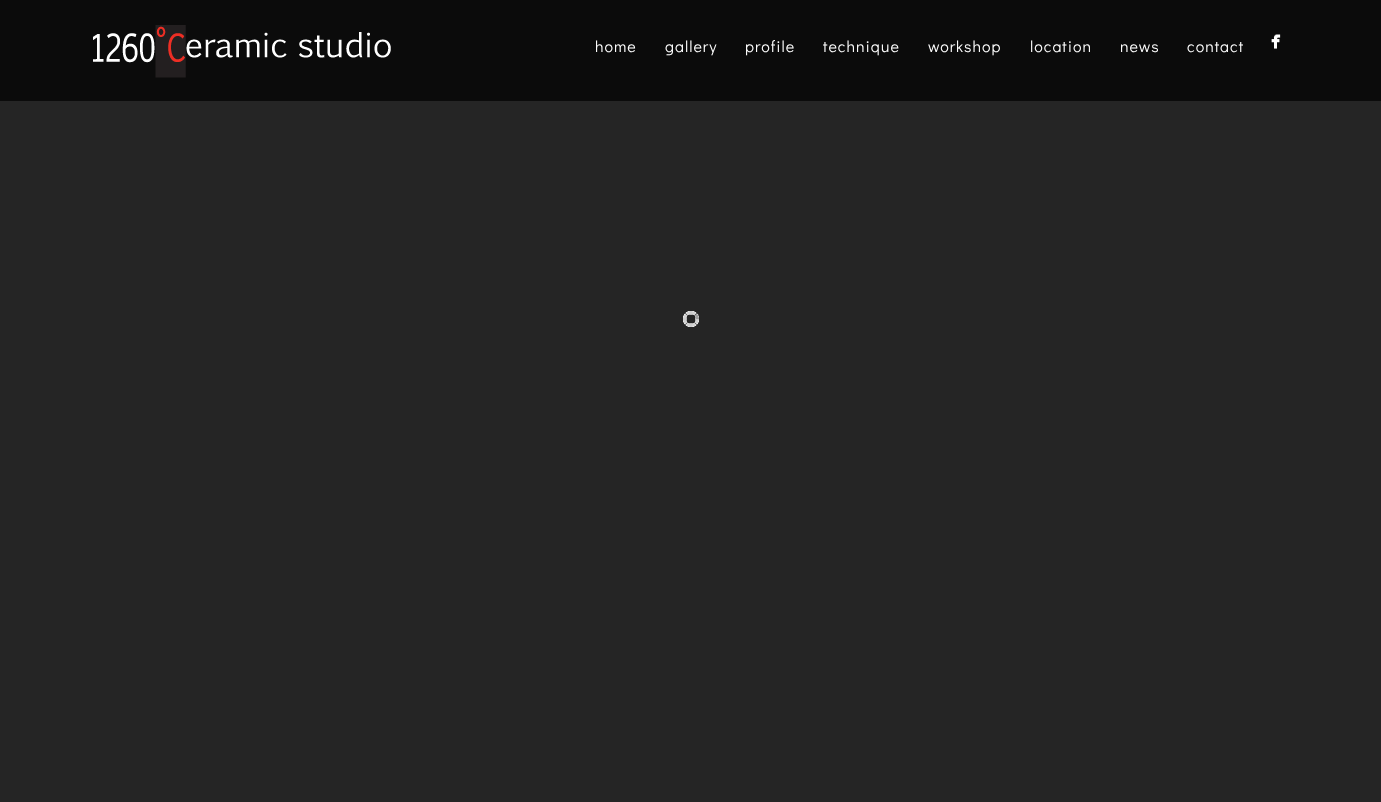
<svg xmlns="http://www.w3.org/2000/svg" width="1381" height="802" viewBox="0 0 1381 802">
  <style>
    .t1 { font: 16px Didact Gothic; letter-spacing: 1px; fill: #fff; }
  </style>
  <rect width="100%" height="100%" fill="#252525"/>
  <rect x="0" y="0" width="1381" height="101" fill="#0b0b0b"/>
  <image x="93" y="25" width="298" height="53" href="images/1.png"/>
  <text x="595" y="52" class="t1">home</text>
  <text x="665" y="52" class="t1">gallery</text>
  <text x="745" y="52" class="t1">profile</text>
  <text x="823" y="52" class="t1">technique</text>
  <text x="928" y="52" class="t1">workshop</text>
  <text x="1030" y="52" class="t1">location</text>
  <text x="1120" y="52" class="t1">news</text>
  <text x="1187" y="52" class="t1">contact</text>
  <image x="1271" y="34" width="10" height="15" href="images/2.png"/>
  <image x="683" y="311" width="16" height="16" href="images/3.png"/>
</svg>
